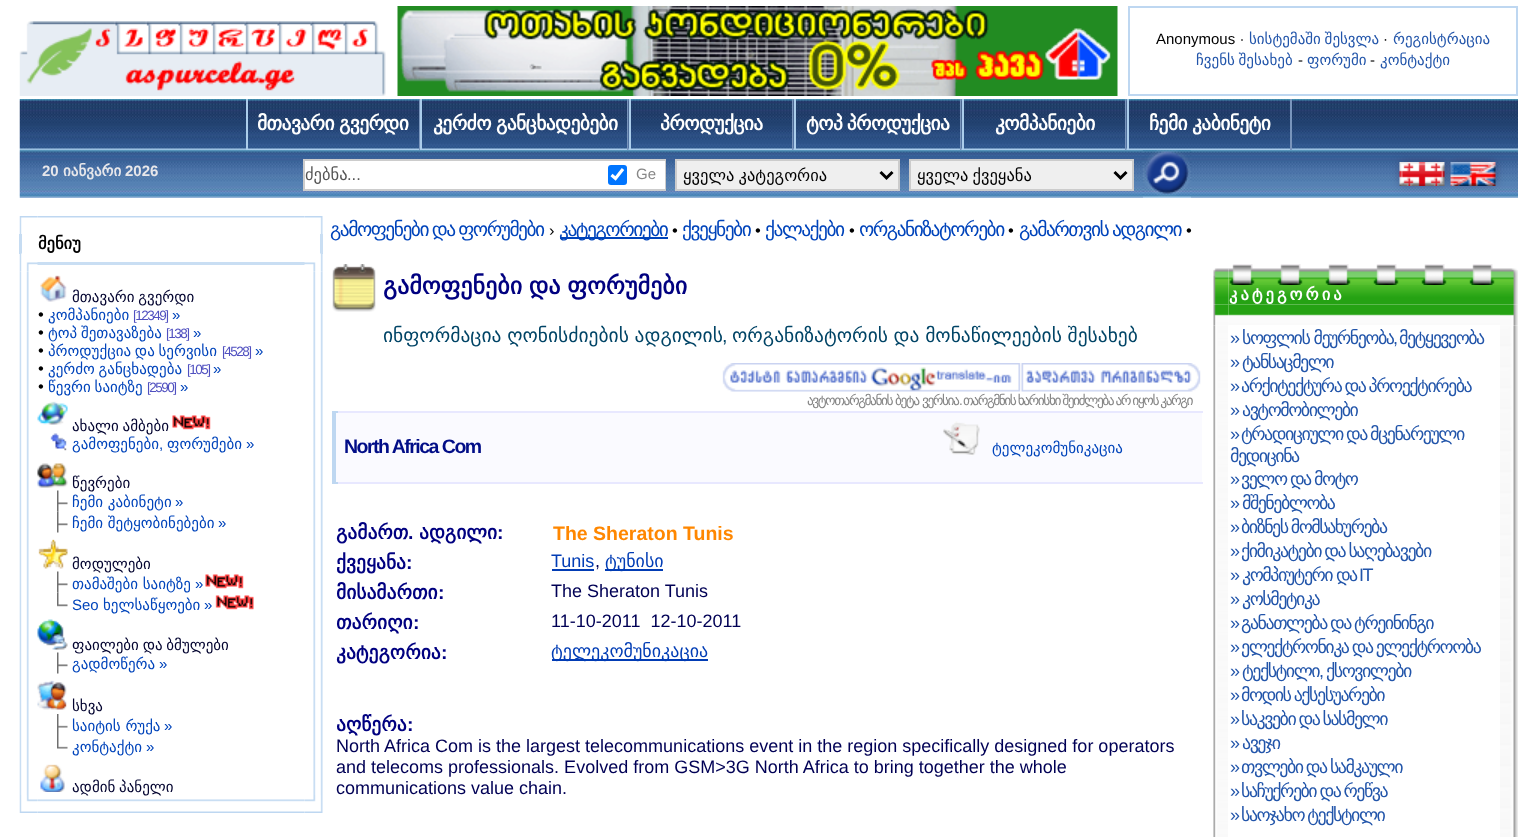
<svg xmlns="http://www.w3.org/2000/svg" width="1537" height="837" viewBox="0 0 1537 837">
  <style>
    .t1 { font: 15px Liberation Sans; fill: #000; }
    .t2 { font: 15px DejaVu Sans; fill: #25a; }
    .t3 { font: bold 19.5px DejaVu Sans; letter-spacing: -0.6px; fill: #fff; }
    .t4 { font: bold 15px Liberation Sans; fill: #e7e7ea; }
    .t5 { font: bold 15px DejaVu Sans; fill: #e7e7ea; }
    .t6 { font: 16.5px DejaVu Sans; fill: #555; }
    .t7 { font: 16.5px Liberation Sans; fill: #555; }
    .t8 { font: 15px Liberation Sans; fill: #878787; }
    .t9 { font: 16.5px DejaVu Sans; fill: #000; }
    .t10 { font: bold 16.5px DejaVu Sans; fill: #000; }
    .t11 { font: 15px DejaVu Sans; fill: #02032f; }
    .t12 { font: 16.5px Liberation Sans; fill: #000; }
    .t13 { font: 15px DejaVu Sans; fill: #04b; }
    .t14 { font: 13.5px Liberation Sans; letter-spacing: -1.5px; fill: #5050c0; }
    .t15 { font: 15px Liberation Sans; fill: #04b; }
    .t16 { font: 19.5px DejaVu Sans; letter-spacing: -1.5px; fill: #04b; }
    .t17 { font: bold 24px DejaVu Sans; fill: #000080; }
    .t18 { font: 19.5px DejaVu Sans; fill: #046; }
    .t19 { font: 19.5px Liberation Sans; fill: #046; }
    .t20 { font: 13.5px DejaVu Sans; letter-spacing: -1.5px; fill: #878787; }
    .t21 { font: 13.5px Liberation Sans; letter-spacing: -1.5px; fill: #878787; }
    .t22 { font: bold 19.5px Liberation Sans; letter-spacing: -1.5px; fill: #010d87; }
    .t23 { font: bold 19.5px DejaVu Sans; fill: #000080; }
    .t24 { font: bold 19.5px Liberation Sans; fill: #000080; }
    .t25 { font: bold 19.5px Liberation Sans; fill: #ff8700; }
    .t26 { font: 18px Liberation Sans; fill: #023db5; }
    .t27 { font: 18px Liberation Sans; fill: #005; }
    .t28 { font: 18px DejaVu Sans; fill: #023db5; }
    .t29 { font: bold 16.5px DejaVu Sans; letter-spacing: 3px; fill: #fff; }
    .t30 { font: 18px Liberation Sans; letter-spacing: -1.5px; fill: #25a; }
    .t31 { font: 18px DejaVu Sans; letter-spacing: -1.5px; fill: #25a; }
  </style>
  <defs>
    <clipPath id="clip1"><rect x="303" y="159" width="294" height="32"/></clipPath>
  </defs>
  <rect width="100%" height="100%" fill="#fff"/>
  <image x="19" y="21" width="367" height="75" href="images/1.png"/>
  <image x="397" y="6" width="721" height="90" href="images/2.png"/>
  <rect x="1129" y="7" width="388" height="88" fill="none" stroke="#bed7f1" stroke-width="2"/>
  <text x="1156" y="44" class="t1">Anonymous ·</text>
  <text x="1249" y="44" word-spacing="-1" class="t2">სისტემაში შესვლა</text>
  <text x="1383" y="44" class="t1">·</text>
  <text x="1393" y="44" class="t2">რეგისტრაცია</text>
  <text x="1196" y="65" word-spacing="-1" class="t2">ჩვენს შესახებ</text>
  <text x="1298" y="65" class="t1">-</text>
  <text x="1307" y="65" class="t2">ფორუმი</text>
  <text x="1370" y="65" class="t1">-</text>
  <text x="1380" y="65" class="t2">კონტაქტი</text>
  <image x="19" y="99" width="1499" height="99" href="images/12.png"/>
  <image x="248" y="99" width="171" height="51" href="images/3.png"/>
  <rect x="419" y="99" width="1" height="51" fill="#7995bc"/>
  <rect x="246" y="99" width="2" height="51" fill="#abcdeb"/>
  <text x="257" y="130" class="t3">მთავარი</text>
  <text x="339" y="130" class="t3">გვერდი</text>
  <image x="422" y="99" width="205" height="51" href="images/4.png"/>
  <rect x="627" y="99" width="2" height="51" fill="#7995bc"/>
  <rect x="420" y="99" width="2" height="51" fill="#abcdeb"/>
  <text x="433" y="130" class="t3">კერძო</text>
  <text x="496" y="130" class="t3">განცხადებები</text>
  <image x="628" y="99" width="164" height="51" href="images/5.png"/>
  <rect x="792" y="99" width="2" height="51" fill="#7995bc"/>
  <rect x="629" y="99" width="2" height="51" fill="#abcdeb"/>
  <text x="660" y="130" class="t3">პროდუქცია</text>
  <image x="793" y="99" width="167" height="51" href="images/6.png"/>
  <rect x="960" y="99" width="2" height="51" fill="#7995bc"/>
  <rect x="794" y="99" width="2" height="51" fill="#abcdeb"/>
  <text x="806" y="130" word-spacing="-1" class="t3">ტოპ პროდუქცია</text>
  <image x="961" y="99" width="164" height="51" href="images/7.png"/>
  <rect x="1125" y="99" width="2" height="51" fill="#7995bc"/>
  <rect x="962" y="99" width="2" height="51" fill="#abcdeb"/>
  <text x="995" y="130" class="t3">კომპანიები</text>
  <image x="1126" y="99" width="164" height="51" href="images/8.png"/>
  <rect x="1290" y="99" width="2" height="51" fill="#7995bc"/>
  <rect x="1127" y="99" width="2" height="51" fill="#abcdeb"/>
  <text x="1149" y="130" class="t3">ჩემი</text>
  <text x="1192" y="130" class="t3">კაბინეტი</text>
  <text x="42" y="176" class="t4">20</text>
  <text x="63" y="176" class="t5">იანვარი</text>
  <text x="125" y="176" class="t4">2026</text>
  <rect x="305" y="161" width="360" height="28" fill="#fff"/>
  <rect x="597" y="159" width="69" height="2" fill="#ccc"/>
  <rect x="665" y="159" width="1" height="32" fill="#ccc"/>
  <rect x="597" y="189" width="69" height="2" fill="#ccc"/>
  <g clip-path="url(#clip1)">
    <rect x="304" y="160" width="295" height="30" fill="none" stroke="#ccc" stroke-width="2"/>
  </g>
  <text x="305" y="180" class="t6">ძებნა</text>
  <text x="347" y="180" class="t7">...</text>
  <rect x="608" y="165" width="19" height="20" rx="3" fill="#0075ff"/>
  <path d="M611.5 175L615.5 178.5L623 169" fill="none" stroke="#fff" stroke-width="3.1"/>
  <text x="636" y="179" class="t8">Ge</text>
  <rect x="676" y="160" width="223" height="30" fill="#efefef" stroke="#ccc" stroke-width="2"/>
  <path d="M880.5 172L886.5 178L892.5 172" fill="none" stroke="#000" stroke-width="3"/>
  <text x="683" y="181" word-spacing="-1" class="t9">ყველა კატეგორია</text>
  <rect x="910" y="160" width="223" height="30" fill="#efefef" stroke="#ccc" stroke-width="2"/>
  <path d="M1114.5 172L1120.5 178L1126.5 172" fill="none" stroke="#000" stroke-width="3"/>
  <text x="917" y="181" word-spacing="-1" class="t9">ყველა ქვეყანა</text>
  <image x="1143" y="150" width="48" height="48" href="images/9.png"/>
  <rect x="1451" y="161" width="45" height="24" fill="#32326480" filter="blur(4px)"/>
  <image x="1450" y="162" width="46" height="24" href="images/11.png"/>
  <rect x="1400" y="161" width="45" height="24" fill="#32326480" filter="blur(4px)"/>
  <image x="1399" y="162" width="46" height="24" href="images/10.png"/>
  <image x="37" y="216" width="268" height="2" href="images/14.png"/>
  <image x="19" y="216" width="19" height="18" href="images/13.png"/>
  <image x="304" y="216" width="19" height="18" href="images/15.png"/>
  <rect x="19" y="234" width="3" height="20" fill="#c6dcf2"/>
  <text x="38" y="249" class="t10">მენიუ</text>
  <rect x="320" y="234" width="3" height="20" fill="#c9def3"/>
  <rect x="37" y="262" width="268" height="3" fill="#c9def3"/>
  <image x="19" y="271" width="10" height="524" href="images/18.png"/>
  <image x="19" y="253" width="19" height="19" href="images/16.png"/>
  <image x="313" y="271" width="10" height="524" href="images/34.png"/>
  <image x="304" y="253" width="19" height="19" href="images/17.png"/>
  <image x="40" y="275" width="27" height="27" href="images/19.png"/>
  <text x="72" y="302" word-spacing="-1" class="t11">მთავარი გვერდი</text>
  <text x="38" y="320" class="t12">•</text>
  <text x="48" y="320" class="t13">კომპანიები</text>
  <text x="133" y="320" class="t14">[12349]</text>
  <text x="172" y="320" class="t15">»</text>
  <text x="38" y="338" class="t12">•</text>
  <text x="48" y="338" word-spacing="-1" class="t13">ტოპ შეთავაზება</text>
  <text x="166" y="338" class="t14">[138]</text>
  <text x="193" y="338" class="t15">»</text>
  <text x="38" y="356" class="t12">•</text>
  <text x="48" y="356" word-spacing="-1" class="t13">პროდუქცია და სერვისი</text>
  <text x="222" y="356" class="t14">[4528]</text>
  <text x="255" y="356" class="t15">»</text>
  <text x="38" y="374" class="t12">•</text>
  <text x="48" y="374" word-spacing="-1" class="t13">კერძო განცხადება</text>
  <text x="187" y="374" class="t14">[105]</text>
  <text x="213" y="374" class="t15">»</text>
  <text x="38" y="392" class="t12">•</text>
  <text x="48" y="392" word-spacing="-1" class="t13">წევრი საიტზე</text>
  <text x="147" y="392" class="t14">[2590]</text>
  <text x="180" y="392" class="t15">»</text>
  <image x="37" y="401" width="31" height="24" href="images/20.png"/>
  <text x="72" y="431" word-spacing="-1" class="t11">ახალი ამბები</text>
  <image x="172" y="415" width="39" height="15" href="images/21.png"/>
  <image x="50" y="433" width="17" height="18" href="images/22.png"/>
  <text x="72" y="449" class="t13">გამოფენები</text>
  <text x="167" y="449" class="t13">ფორუმები</text>
  <text x="246" y="449" class="t15">»</text>
  <text x="159" y="449" class="t15">,</text>
  <image x="37" y="463" width="31" height="25" href="images/23.png"/>
  <text x="72" y="488" class="t11">წევრები</text>
  <image x="57" y="490" width="11" height="22" href="images/24.png"/>
  <text x="72" y="507" class="t13">ჩემი კაბინეტი</text>
  <text x="175" y="507" class="t15">»</text>
  <image x="57" y="511" width="11" height="22" href="images/25.png"/>
  <text x="72" y="528" class="t13">ჩემი შეტყობინებები</text>
  <text x="218" y="528" class="t15">»</text>
  <image x="38" y="539" width="30" height="30" href="images/26.png"/>
  <text x="72" y="569" class="t11">მოდულები</text>
  <image x="57" y="571" width="11" height="22" href="images/24.png"/>
  <text x="72" y="589" class="t13">თამაშები საიტზე</text>
  <text x="195" y="589" class="t15">»</text>
  <image x="205" y="574" width="39" height="15" href="images/21.png"/>
  <image x="57" y="592" width="11" height="15" href="images/27.png"/>
  <text x="72" y="610" class="t15">Seo</text>
  <text x="103" y="610" class="t13">ხელსაწყოები</text>
  <text x="204" y="610" class="t15">»</text>
  <image x="215" y="595" width="39" height="15" href="images/28.png"/>
  <image x="37" y="619" width="31" height="31" href="images/29.png"/>
  <text x="72" y="650" word-spacing="-1" class="t11">ფაილები და ბმულები</text>
  <image x="57" y="652" width="11" height="22" href="images/24.png"/>
  <text x="72" y="669" class="t13">გადმოწერა</text>
  <text x="159" y="669" class="t15">»</text>
  <image x="37" y="680" width="30" height="30" href="images/30.png"/>
  <text x="72" y="711" class="t11">სხვა</text>
  <image x="57" y="714" width="11" height="21" href="images/31.png"/>
  <text x="72" y="731" class="t13">საიტის რუქა</text>
  <text x="164" y="731" class="t15">»</text>
  <image x="57" y="735" width="11" height="14" href="images/32.png"/>
  <text x="72" y="752" class="t13">კონტაქტი</text>
  <text x="146" y="752" class="t15">»</text>
  <image x="40" y="764" width="25" height="28" href="images/33.png"/>
  <text x="72" y="792" word-spacing="-1" class="t11">ადმინ პანელი</text>
  <image x="37" y="799" width="268" height="14" href="images/36.png"/>
  <image x="19" y="795" width="19" height="18" href="images/35.png"/>
  <image x="304" y="795" width="19" height="18" href="images/37.png"/>
  <text x="330" y="236" word-spacing="-1" class="t16">გამოფენები და ფორუმები</text>
  <text x="549" y="236" class="t12">›</text>
  <rect x="560" y="237" width="108" height="2" fill="#04b"/>
  <text x="559" y="236" class="t16">კატეგორიები</text>
  <text x="672" y="236" class="t12">•</text>
  <text x="682" y="236" class="t16">ქვეყნები</text>
  <text x="755" y="236" class="t12">•</text>
  <text x="765" y="236" class="t16">ქალაქები</text>
  <text x="849" y="236" class="t12">•</text>
  <text x="859" y="236" class="t16">ორგანიზატორები</text>
  <text x="1008" y="236" class="t12">•</text>
  <text x="1019" y="236" word-spacing="-1" class="t16">გამართვის ადგილი</text>
  <text x="1186" y="236" class="t12">•</text>
  <image x="332" y="264" width="44" height="48" href="images/38.png"/>
  <text x="383" y="294" word-spacing="-1" class="t17">გამოფენები და ფორუმები</text>
  <text x="383" y="342" word-spacing="-0.5" class="t18">ინფორმაცია ღონისძიების ადგილის</text>
  <text x="722" y="342" class="t19">,</text>
  <text x="732" y="342" word-spacing="-0.5" class="t18">ორგანიზატორის და მონაწილეების შესახებ</text>
  <image x="722" y="363" width="299" height="29" href="images/39.png"/>
  <image x="1021" y="363" width="180" height="29" href="images/40.png"/>
  <text x="807" y="405" class="t20">ავტოთარგმანის</text>
  <text x="895" y="405" class="t20">ბეტა</text>
  <text x="922" y="405" class="t20">ვერსია</text>
  <text x="959" y="405" class="t21">.</text>
  <text x="963" y="405" word-spacing="-0.5" class="t20">თარგმნის ხარისხი შეიძლება არ იყოს კარგი</text>
  <rect x="332" y="413" width="4" height="70" fill="#bed7f1"/>
  <rect x="336" y="411" width="867" height="2" fill="#e8e8ff"/>
  <rect x="332" y="411" width="6" height="2" fill="#bed7f1"/>
  <rect x="336" y="482" width="867" height="2" fill="#e8e8ff"/>
  <rect x="332" y="482" width="6" height="2" fill="#bed7f1"/>
  <rect x="336" y="413" width="866" height="69" fill="#fafaff"/>
  <text x="344" y="453" class="t22">North Africa Com</text>
  <image x="943" y="421" width="37" height="35" href="images/41.png"/>
  <text x="992" y="453" class="t13">ტელეკომუნიკაცია</text>
  <text x="336" y="539" class="t23">გამართ</text>
  <text x="408" y="539" class="t24">.</text>
  <text x="419" y="539" class="t23">ადგილი</text>
  <text x="497" y="539" class="t24">:</text>
  <text x="553" y="540" class="t25">The Sheraton Tunis</text>
  <text x="336" y="569" class="t23">ქვეყანა</text>
  <text x="406" y="569" class="t24">:</text>
  <text x="551" y="567" class="t26">Tunis</text>
  <rect x="552" y="569" width="42" height="2" fill="#023db5"/>
  <text x="595" y="567" class="t27">,</text>
  <rect x="605" y="569" width="58" height="2" fill="#023db5"/>
  <text x="605" y="567" class="t28">ტუნისი</text>
  <text x="336" y="599" class="t23">მისამართი</text>
  <text x="438" y="599" class="t24">:</text>
  <text x="551" y="597" class="t27">The Sheraton Tunis</text>
  <text x="336" y="629" class="t23">თარიღი</text>
  <text x="413" y="629" class="t24">:</text>
  <text x="551" y="627" class="t27" xml:space="preserve">11-10-2011  12-10-2011</text>
  <text x="336" y="659" class="t23">კატეგორია</text>
  <text x="441" y="659" class="t24">:</text>
  <rect x="552" y="659" width="156" height="2" fill="#023db5"/>
  <text x="551" y="657" class="t28">ტელეკომუნიკაცია</text>
  <text x="336" y="731" class="t23">აღწერა</text>
  <text x="407" y="731" class="t24">:</text>
  <text x="336" y="752" class="t27">North Africa Com is the largest telecommunications event in the region specifically designed for operators</text>
  <text x="336" y="773" class="t27">and telecoms professionals. Evolved from GSM&gt;3G North Africa to bring together the whole</text>
  <text x="336" y="794" class="t27">communications value chain.</text>
  <image x="1228" y="264" width="272" height="21" href="images/43.png"/>
  <image x="1213" y="268" width="16" height="17" href="images/42.png"/>
  <image x="1500" y="268" width="18" height="17" href="images/44.png"/>
  <image x="1213" y="285" width="16" height="20" href="images/45.png"/>
  <image x="1228" y="285" width="272" height="20" href="images/46.png"/>
  <text x="1229" y="300" class="t29">კატეგორია</text>
  <image x="1500" y="285" width="18" height="20" href="images/47.png"/>
  <image x="1228" y="304" width="272" height="21" href="images/49.png"/>
  <image x="1213" y="325" width="15" height="512" href="images/51.png"/>
  <image x="1213" y="304" width="16" height="22" href="images/48.png"/>
  <image x="1500" y="325" width="18" height="512" href="images/52.png"/>
  <image x="1500" y="304" width="18" height="22" href="images/50.png"/>
  <text x="1230" y="344" class="t30">»</text>
  <text x="1242" y="344" class="t31">სოფლის მეურნეობა</text>
  <text x="1399" y="344" class="t31">მეტყევეობა</text>
  <text x="1393" y="344" class="t30">,</text>
  <text x="1230" y="368" class="t30">»</text>
  <text x="1242" y="368" class="t31">ტანსაცმელი</text>
  <text x="1230" y="392" class="t30">»</text>
  <text x="1241" y="392" word-spacing="-1" class="t31">არქიტექტურა და პროექტირება</text>
  <text x="1230" y="416" class="t30">»</text>
  <text x="1242" y="416" class="t31">ავტომობილები</text>
  <text x="1230" y="440" class="t30">»</text>
  <text x="1241" y="440" word-spacing="-1" class="t31">ტრადიციული და მცენარეული</text>
  <text x="1230" y="462" class="t31">მედიცინა</text>
  <text x="1230" y="485" class="t30">»</text>
  <text x="1241" y="485" word-spacing="-1" class="t31">ველო და მოტო</text>
  <text x="1230" y="509" class="t30">»</text>
  <text x="1242" y="509" class="t31">მშენებლობა</text>
  <text x="1230" y="533" class="t30">»</text>
  <text x="1241" y="533" word-spacing="-1" class="t31">ბიზნეს მომსახურება</text>
  <text x="1230" y="557" class="t30">»</text>
  <text x="1241" y="557" word-spacing="-1" class="t31">ქიმიკატები და საღებავები</text>
  <text x="1230" y="581" class="t30">»</text>
  <text x="1242" y="581" word-spacing="-0.5" class="t31">კომპიუტერი და</text>
  <text x="1359" y="581" class="t30">IT</text>
  <text x="1230" y="605" class="t30">»</text>
  <text x="1242" y="605" class="t31">კოსმეტიკა</text>
  <text x="1230" y="629" class="t30">»</text>
  <text x="1241" y="629" word-spacing="-1" class="t31">განათლება და ტრეინინგი</text>
  <text x="1230" y="653" class="t30">»</text>
  <text x="1241" y="653" word-spacing="-1" class="t31">ელექტრონიკა და ელექტროობა</text>
  <text x="1230" y="677" class="t30">»</text>
  <text x="1242" y="677" class="t31">ტექსტილი</text>
  <text x="1326" y="677" class="t31">ქსოვილები</text>
  <text x="1319" y="677" class="t30">,</text>
  <text x="1230" y="701" class="t30">»</text>
  <text x="1241" y="701" word-spacing="-1" class="t31">მოდის აქსესუარები</text>
  <text x="1230" y="725" class="t30">»</text>
  <text x="1241" y="725" word-spacing="-1" class="t31">საკვები და სასმელი</text>
  <text x="1230" y="749" class="t30">»</text>
  <text x="1242" y="749" class="t31">ავეჯი</text>
  <text x="1230" y="773" class="t30">»</text>
  <text x="1241" y="773" word-spacing="-1" class="t31">თვლები და სამკაული</text>
  <text x="1230" y="797" class="t30">»</text>
  <text x="1241" y="797" word-spacing="-1" class="t31">საჩუქრები და რეწვა</text>
  <text x="1230" y="821" class="t30">»</text>
  <text x="1241" y="821" word-spacing="-1" class="t31">საოჯახო ტექსტილი</text>
</svg>
